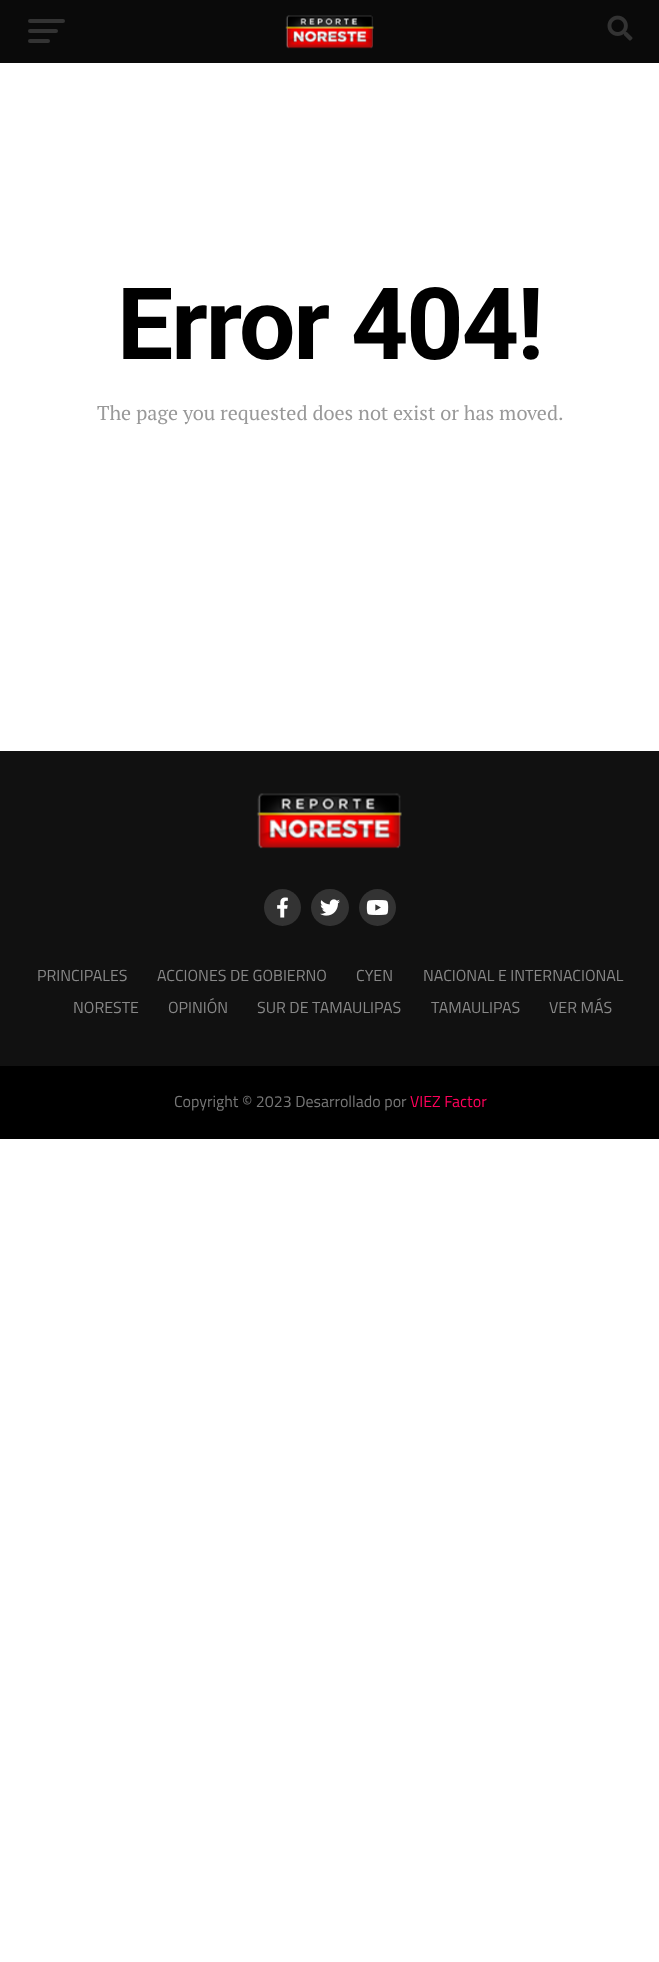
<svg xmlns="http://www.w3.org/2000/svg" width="659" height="1962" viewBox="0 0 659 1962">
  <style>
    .t1 { font: bold 100px Roboto; letter-spacing: -2px; fill: #000; }
    .t2 { font: 20px PT Serif; fill: #999; }
    .t3 { font: 16px Titillium Web; fill: #888; }
    .t4 { font: 16px Titillium Web; fill: #777; }
    .t5 { font: 16px Titillium Web; fill: #ff005b; }
  </style>
  <rect width="100%" height="100%" fill="#fff"/>
  <rect x="0" y="0" width="659" height="63" fill="#0a0a0a"/>
  <rect x="28" y="19" width="37" height="4" rx="2" fill="#333"/>
  <rect x="28" y="29" width="30" height="4" rx="2" fill="#333"/>
  <rect x="28" y="39" width="22" height="4" rx="2" fill="#333"/>
  <image x="285" y="15" width="89" height="34" href="images/1.png"/>
  <image x="607" y="15" width="26" height="26" href="images/2.png"/>
  <text x="117" y="359" class="t1">Error 404!</text>
  <text x="97" y="420" class="t2">The page you requested does not exist or has moved.</text>
  <rect x="0" y="751" width="659" height="315" fill="#111"/>
  <image x="256" y="793" width="146" height="56" href="images/3.png"/>
  <circle cx="282.5" cy="907.5" r="18.5" fill="#333"/>
  <image x="277" y="897" width="11" height="21" href="images/4.png"/>
  <rect x="311" y="889" width="38" height="37" rx="18.5" fill="#333"/>
  <image x="320" y="899" width="20" height="17" href="images/5.png"/>
  <circle cx="377.5" cy="907.5" r="18.5" fill="#333"/>
  <image x="366" y="900" width="23" height="15" href="images/6.png"/>
  <text x="37" y="981" class="t3">PRINCIPALES</text>
  <text x="157" y="981" class="t3">ACCIONES DE GOBIERNO</text>
  <text x="356" y="981" class="t3">CYEN</text>
  <text x="423" y="981" class="t3">NACIONAL E INTERNACIONAL</text>
  <text x="73" y="1013" class="t3">NORESTE</text>
  <text x="168" y="1013" class="t3">OPINIÓN</text>
  <text x="257" y="1013" class="t3">SUR DE TAMAULIPAS</text>
  <text x="431" y="1013" class="t3">TAMAULIPAS</text>
  <text x="549" y="1013" class="t3">VER MÁS</text>
  <rect x="0" y="1066" width="659" height="73" fill="#000"/>
  <text x="174" y="1107" class="t4">Copyright © 2023 Desarrollado por</text>
  <text x="410" y="1107" class="t5">VIEZ Factor</text>
</svg>
